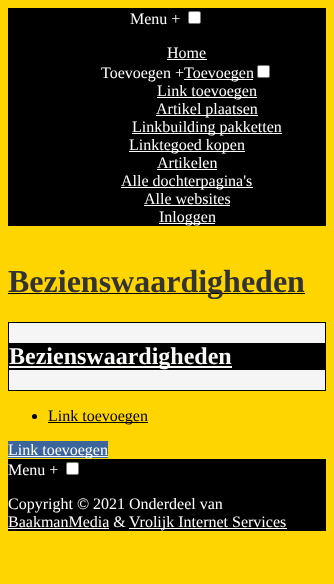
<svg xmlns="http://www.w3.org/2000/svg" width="334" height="584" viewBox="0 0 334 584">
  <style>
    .t1 { font: 16px Liberation Serif; fill: #fff; }
    .t2 { font: bold 32px Liberation Serif; fill: #333; }
    .t3 { font: bold 24px Liberation Serif; fill: #f8f8f7; }
    .t4 { font: 16px Liberation Serif; fill: #000; }
  </style>
  <rect width="100%" height="100%" fill="#ffd500"/>
  <rect x="8" y="8" width="318" height="218" fill="#000"/>
  <text x="130" y="24" class="t1">Menu +</text>
  <rect x="188.5" y="11.5" width="12" height="12" rx="1.5" fill="#fff" stroke="#767676"/>
  <text x="167" y="58" class="t1">Home</text>
  <rect x="167" y="59" width="40" height="1" fill="#fff"/>
  <text x="101" y="78" class="t1">Toevoegen +</text>
  <rect x="184" y="79" width="69" height="1" fill="#fff"/>
  <text x="184" y="78" class="t1">Toevoegen</text>
  <rect x="257.5" y="65.5" width="12" height="12" rx="1.5" fill="#fff" stroke="#767676"/>
  <rect x="157" y="97" width="100" height="1" fill="#fff"/>
  <text x="157" y="96" class="t1">Link toevoegen</text>
  <rect x="156" y="115" width="102" height="1" fill="#fff"/>
  <text x="156" y="114" class="t1">Artikel plaatsen</text>
  <rect x="132" y="133" width="150" height="1" fill="#fff"/>
  <text x="132" y="132" class="t1">Linkbuilding pakketten</text>
  <rect x="129" y="151" width="116" height="1" fill="#fff"/>
  <text x="129" y="150" class="t1">Linktegoed kopen</text>
  <text x="157" y="168" class="t1">Artikelen</text>
  <rect x="157" y="169" width="60" height="1" fill="#fff"/>
  <rect x="121" y="187" width="132" height="1" fill="#fff"/>
  <text x="121" y="186" class="t1">Alle dochterpagina's</text>
  <text x="144" y="204" class="t1">Alle websites</text>
  <rect x="144" y="205" width="86" height="1" fill="#fff"/>
  <rect x="159" y="223" width="56" height="1" fill="#fff"/>
  <text x="159" y="222" class="t1">Inloggen</text>
  <rect x="8" y="293" width="297" height="1" fill="#000"/>
  <text x="8" y="292" class="t2">Bezienswaardigheden</text>
  <rect x="8.5" y="322.5" width="317" height="68" fill="#f5f5f5" stroke="#000"/>
  <rect x="9" y="343" width="316" height="27" fill="#000"/>
  <rect x="9" y="366" width="223" height="2" fill="#f8f8f7"/>
  <text x="9" y="364" class="t3">Bezienswaardigheden</text>
  <circle cx="34.5" cy="416.5" r="2.5" fill="#000"/>
  <rect x="48" y="422" width="100" height="1" fill="#000"/>
  <text x="48" y="421" class="t4">Link toevoegen</text>
  <rect x="8" y="441" width="100" height="17" fill="#3b659b"/>
  <rect x="8" y="456" width="100" height="1" fill="#fff"/>
  <text x="8" y="455" class="t1">Link toevoegen</text>
  <rect x="8" y="459" width="318" height="72" fill="#000"/>
  <text x="8" y="475" class="t1">Menu +</text>
  <rect x="66.5" y="462.5" width="12" height="12" rx="1.5" fill="#fff" stroke="#767676"/>
  <text x="8" y="509" class="t1">Copyright © 2021 Onderdeel van</text>
  <text x="8" y="527" class="t1">BaakmanMedia &amp;</text>
  <rect x="8" y="528" width="101" height="1" fill="#fff"/>
  <rect x="129" y="528" width="158" height="1" fill="#fff"/>
  <text x="129" y="527" class="t1">Vrolijk Internet Services</text>
</svg>
